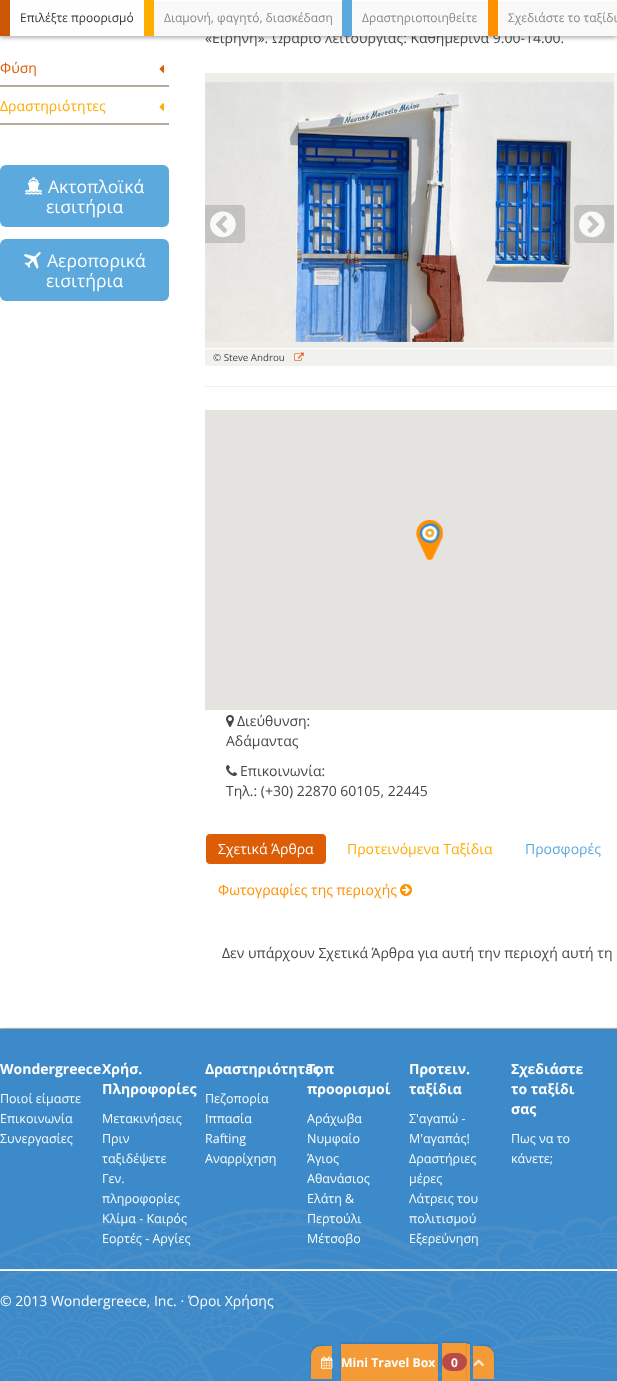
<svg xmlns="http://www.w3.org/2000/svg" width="617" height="1381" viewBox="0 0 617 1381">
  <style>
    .t1 { font: 14px Open Sans; fill: #464646; }
    .t2 { font: 12px Open Sans; fill: #333; }
    .t3 { font: 12px Open Sans; fill: #888; }
    .t4 { font: 14px Open Sans; fill: #dd5d06; }
    .t5 { font: 14px Open Sans; fill: #ffac00; }
    .t6 { font: 17.5px Open Sans; fill: #fff; }
    .t7 { font: 9.75px Open Sans; fill: #464646; }
    .t8 { font: 14px Open Sans; fill: #fff; }
    .t9 { font: 14px Open Sans; fill: #5ca9dd; }
    .t10 { font: 14px Open Sans; fill: #ff9000; }
    .t11 { font: bold 14px Open Sans; fill: #fff; }
    .t12 { font: 12.5px Open Sans; fill: #f9fefe; }
    .t13 { font: 14px Open Sans; fill: #f9fefe; }
    .t14 { font: bold 12.25px Open Sans; fill: #fff; }
    .t15 { font: bold 12px Open Sans; fill: #fff; }
  </style>
  <defs>
    <clipPath id="clip1"><rect x="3" y="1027" width="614" height="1"/></clipPath>
    <clipPath id="clip2"><path d="M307 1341H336V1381H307ZM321 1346H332V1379H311V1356C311 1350.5 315.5 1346 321 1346Z" clip-rule="evenodd"/></clipPath>
    <clipPath id="clip3"><path d="M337 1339H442V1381H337ZM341 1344H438V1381H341Z" clip-rule="evenodd"/></clipPath>
    <clipPath id="clip4"><path d="M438 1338H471V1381H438ZM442 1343H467V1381H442Z" clip-rule="evenodd"/></clipPath>
    <clipPath id="clip5"><path d="M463 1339H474V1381H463ZM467 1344H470V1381H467Z" clip-rule="evenodd"/></clipPath>
    <clipPath id="clip6"><path d="M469 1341H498V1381H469ZM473 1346H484C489.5 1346 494 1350.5 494 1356V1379H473Z" clip-rule="evenodd"/></clipPath>
  </defs>
  <rect width="100%" height="100%" fill="#3d8aca"/>
  <image x="0" y="1208" width="617" height="173" href="images/1.png"/>
  <rect x="0" y="36" width="617" height="992" fill="#fff"/>
  <rect x="0" y="1" width="617" height="36" fill="#00000069" filter="blur(2.5px)"/>
  <text x="205" y="43" class="t1">«Ειρήνη». Ωράριο λειτουργίας: Καθημερινά 9.00-14.00.</text>
  <rect x="154" y="1" width="463" height="35" fill="#f9f9f9"/>
  <rect x="154" y="0" width="463" height="1" fill="#fff"/>
  <rect x="10" y="0" width="134" height="36" fill="#fefefe"/>
  <rect x="0" y="0" width="10" height="36" fill="#ce5706"/>
  <text x="20" y="22" class="t2">Επιλέξτε προορισμό</text>
  <rect x="144" y="0" width="10" height="36" fill="#ffac00"/>
  <text x="164" y="22" class="t3">Διαμονή, φαγητό, διασκέδαση</text>
  <rect x="342" y="0" width="10" height="36" fill="#5ca9dd"/>
  <text x="362" y="22" class="t3">Δραστηριοποιηθείτε</text>
  <rect x="488" y="0" width="10" height="36" fill="#ff9000"/>
  <text x="508" y="22" class="t3">Σχεδιάστε το ταξίδι</text>
  <rect x="0" y="85" width="169" height="2" fill="#b8ab9c"/>
  <text x="0" y="73" class="t4">Φύση</text>
  <image x="159" y="65" width="5" height="8" href="images/2.png"/>
  <rect x="0" y="123" width="169" height="2" fill="#b8ab9c"/>
  <text x="0" y="111" class="t5">Δραστηριότητες</text>
  <image x="159" y="103" width="5" height="8" href="images/3.png"/>
  <rect x="0" y="165" width="169" height="62" rx="6" fill="#5ca9dd"/>
  <image x="25" y="177" width="17" height="18" href="images/4.png"/>
  <text x="48" y="193" class="t6">Ακτοπλοϊκά</text>
  <text x="46" y="213" class="t6">εισιτήρια</text>
  <rect x="0" y="239" width="169" height="62" rx="6" fill="#5ca9dd"/>
  <image x="23" y="252" width="18" height="17" href="images/5.png"/>
  <text x="47" y="267" class="t6">Αεροπορικά</text>
  <text x="46" y="287" class="t6">εισιτήρια</text>
  <rect x="614" y="73" width="3" height="293" fill="#f7f7f5"/>
  <rect x="205" y="73" width="409" height="275" fill="#eeedea"/>
  <image x="205" y="82" width="409" height="260" href="images/8.png"/>
  <path d="M205 205H240C243 205 245 207 245 210V238C245 241 243 243 240 243H205Z" fill="#5f5f5f40"/>
  <image x="210" y="211" width="26" height="27" href="images/6.png"/>
  <path d="M579 205H614V243H579C576 243 574 241 574 238V210C574 207 576 205 579 205Z" fill="#5f5f5f40"/>
  <image x="579" y="211" width="26" height="27" href="images/7.png"/>
  <rect x="205" y="349" width="409" height="17" fill="#f1f1ee"/>
  <text x="213" y="361" class="t7">© Steve Androu</text>
  <image x="294" y="352" width="10" height="9" href="images/9.png"/>
  <rect x="205" y="386" width="412" height="1" fill="#eee"/>
  <rect x="205" y="410" width="412" height="300" fill="#e5e3df"/>
  <image x="416" y="520" width="27" height="40" href="images/10.png"/>
  <image x="226" y="715" width="8" height="12" href="images/11.png"/>
  <text x="237" y="726" class="t1">Διεύθυνση:</text>
  <text x="226" y="746" class="t1">Αδάμαντας</text>
  <image x="226" y="765" width="11" height="11" href="images/12.png"/>
  <text x="240" y="776" class="t1">Επικοινωνία:</text>
  <text x="226" y="796" class="t1">Τηλ.: (+30) 22870 60105, 22445</text>
  <rect x="205.5" y="833.5" width="121" height="31" rx="4.5" fill="#dd5d06" stroke="#fff"/>
  <text x="218" y="854" class="t8">Σχετικά Άρθρα</text>
  <text x="347" y="854" class="t5">Προτεινόμενα Ταξίδια</text>
  <text x="525" y="854" class="t9">Προσφορές</text>
  <text x="218" y="895" class="t10">Φωτογραφίες της περιοχής</text>
  <image x="400" y="884" width="12" height="12" href="images/13.png"/>
  <text x="222" y="958" class="t1">Δεν υπάρχουν Σχετικά Άρθρα για αυτή την περιοχή αυτή τη</text>
  <g clip-path="url(#clip1)">
    <rect x="4" y="1030" width="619" height="345" fill="#00000080" filter="blur(2px)"/>
  </g>
  <rect x="0" y="1028" width="617" height="1" fill="#b8ab9c"/>
  <text x="0" y="1074" class="t11">Wondergreece</text>
  <text x="0" y="1103" class="t12">Ποιοί είμαστε</text>
  <text x="0" y="1123" class="t12">Επικοινωνία</text>
  <text x="0" y="1143" class="t12">Συνεργασίες</text>
  <text x="102" y="1074" class="t11">Χρήσ.</text>
  <text x="102" y="1094" class="t11">Πληροφορίες</text>
  <text x="102" y="1123" class="t12">Μετακινήσεις</text>
  <text x="102" y="1143" class="t12">Πριν</text>
  <text x="102" y="1163" class="t12">ταξιδέψετε</text>
  <text x="102" y="1183" class="t12">Γεν.</text>
  <text x="102" y="1203" class="t12">πληροφορίες</text>
  <text x="102" y="1223" class="t12">Κλίμα - Καιρός</text>
  <text x="102" y="1243" class="t12">Εορτές - Αργίες</text>
  <text x="205" y="1074" class="t11">Δραστηριότητες</text>
  <text x="205" y="1103" class="t12">Πεζοπορία</text>
  <text x="205" y="1123" class="t12">Ιππασία</text>
  <text x="205" y="1143" class="t12">Rafting</text>
  <text x="205" y="1163" class="t12">Αναρρίχηση</text>
  <text x="307" y="1074" class="t11">Τοπ</text>
  <text x="307" y="1094" class="t11">προορισμοί</text>
  <text x="307" y="1123" class="t12">Αράχωβα</text>
  <text x="307" y="1143" class="t12">Νυμφαίο</text>
  <text x="307" y="1163" class="t12">Άγιος</text>
  <text x="307" y="1183" class="t12">Αθανάσιος</text>
  <text x="307" y="1203" class="t12">Ελάτη &amp;</text>
  <text x="307" y="1223" class="t12">Περτούλι</text>
  <text x="307" y="1243" class="t12">Μέτσοβο</text>
  <text x="409" y="1074" class="t11">Προτειν.</text>
  <text x="409" y="1094" class="t11">ταξίδια</text>
  <text x="409" y="1123" class="t12">Σ'αγαπώ -</text>
  <text x="409" y="1143" class="t12">Μ'αγαπάς!</text>
  <text x="409" y="1163" class="t12">Δραστήριες</text>
  <text x="409" y="1183" class="t12">μέρες</text>
  <text x="409" y="1203" class="t12">Λάτρεις του</text>
  <text x="409" y="1223" class="t12">πολιτισμού</text>
  <text x="409" y="1243" class="t12">Εξερεύνηση</text>
  <text x="511" y="1074" class="t11">Σχεδιάστε</text>
  <text x="511" y="1094" class="t11">το ταξίδι</text>
  <text x="511" y="1114" class="t11">σας</text>
  <text x="511" y="1143" class="t12">Πως να το</text>
  <text x="511" y="1163" class="t12">κάνετε;</text>
  <rect x="0" y="1269" width="617" height="1" fill="#eee"/>
  <rect x="0" y="1270" width="617" height="1" fill="#fff"/>
  <text x="0" y="1306" class="t8">© 2013 Wondergreece, Inc. ·</text>
  <text x="188" y="1306" class="t13">Όροι Χρήσης</text>
  <g clip-path="url(#clip2)">
    <rect x="311" y="1345" width="21" height="33" rx="10" fill="#00000026" filter="blur(1px)"/>
  </g>
  <path d="M321 1346H332V1379H311V1356C311 1350.5 315.5 1346 321 1346Z" fill="#f89a34fa"/>
  <g clip-path="url(#clip3)">
    <rect x="341" y="1343" width="97" height="37" fill="#00000026" filter="blur(1px)"/>
  </g>
  <rect x="341" y="1344" width="97" height="37" fill="#f89a34fa"/>
  <g clip-path="url(#clip4)">
    <rect x="442" y="1342" width="25" height="38" fill="#00000026" filter="blur(1px)"/>
  </g>
  <rect x="442" y="1343" width="25" height="38" fill="#f89a34fa"/>
  <g clip-path="url(#clip5)">
    <rect x="467" y="1343" width="3" height="37" fill="#00000026" filter="blur(1px)"/>
  </g>
  <rect x="467" y="1344" width="3" height="37" fill="#f89a34fa"/>
  <g clip-path="url(#clip6)">
    <rect x="473" y="1345" width="21" height="33" rx="10" fill="#00000026" filter="blur(1px)"/>
  </g>
  <path d="M473 1346H484C489.5 1346 494 1350.5 494 1356V1379H473Z" fill="#f89a34fa"/>
  <image x="321" y="1356" width="12" height="13" href="images/14.png"/>
  <text x="341" y="1367" class="t14">Mini Travel Box</text>
  <rect x="442" y="1353" width="25" height="18" rx="9" fill="#b94a48"/>
  <text x="451" y="1367" class="t15">0</text>
  <image x="473" y="1359" width="11" height="8" href="images/15.png"/>
</svg>
